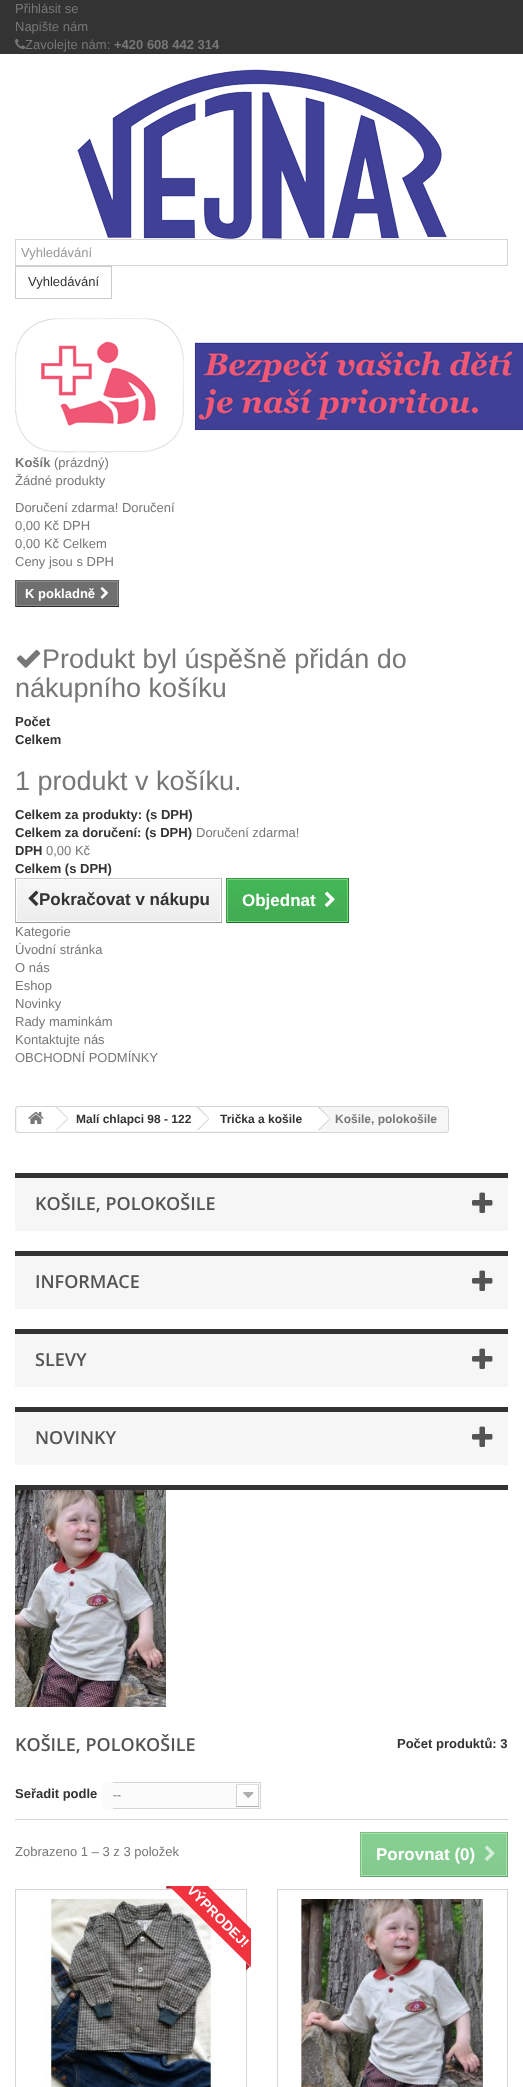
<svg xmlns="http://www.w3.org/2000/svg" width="523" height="2087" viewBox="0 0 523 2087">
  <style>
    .t1 { font: 13px Liberation Sans; fill: #777; }
    .t2 { font: bold 13px Liberation Sans; fill: #777; }
    .t3 { font: 13px Liberation Sans; fill: #999; }
    .t4 { font: 13px Liberation Sans; fill: #333; }
    .t5 { font: bold 13px Liberation Sans; fill: #fff; }
    .t6 { font: 27px Liberation Sans; fill: #777; }
    .t7 { font: bold 13px Liberation Sans; fill: #333; }
    .t8 { font: bold 17px Liberation Sans; fill: #333; }
    .t9 { font: bold 17px Liberation Sans; fill: #fff; }
    .t10 { font: bold 12px Liberation Sans; fill: #333; }
    .t11 { font: bold 12px Liberation Sans; fill: #777; }
    .t12 { font: 600 18px Open Sans; fill: #555454; }
    .t13 { font: 12px Liberation Sans; fill: #666; }
    .t14 { font: bold 14px Liberation Sans; fill: #fff; }
  </style>
  <defs>
    <linearGradient id="g1" gradientUnits="userSpaceOnUse" x1="119" y1="880" x2="119" y2="921"><stop offset="0" stop-color="#f7f7f7"/><stop offset="1" stop-color="#ededed"/></linearGradient>
    <linearGradient id="g2" gradientUnits="userSpaceOnUse" x1="288" y1="879" x2="288" y2="922"><stop offset="0" stop-color="#43b754"/><stop offset="0.02" stop-color="#41b757"/><stop offset="0.04" stop-color="#41b854"/><stop offset="0.06" stop-color="#43b756"/><stop offset="0.38" stop-color="#41b354"/><stop offset="0.4" stop-color="#44b355"/><stop offset="0.66" stop-color="#45af55"/><stop offset="0.74" stop-color="#41ae53"/><stop offset="0.91" stop-color="#42ac52"/><stop offset="0.94" stop-color="#41ae55"/><stop offset="0.96" stop-color="#43ab54"/><stop offset="1" stop-color="#42ac52"/></linearGradient>
    <linearGradient id="g3" gradientUnits="userSpaceOnUse" x1="434" y1="1833" x2="434" y2="1876"><stop offset="0" stop-color="#85d090"/><stop offset="0.02" stop-color="#84d092"/><stop offset="0.04" stop-color="#84d190"/><stop offset="0.06" stop-color="#85d091"/><stop offset="0.38" stop-color="#84ce90"/><stop offset="0.4" stop-color="#85ce91"/><stop offset="0.66" stop-color="#86cb91"/><stop offset="0.74" stop-color="#84ca8f"/><stop offset="0.91" stop-color="#84c98f"/><stop offset="0.94" stop-color="#84ca91"/><stop offset="0.96" stop-color="#85c890"/><stop offset="1" stop-color="#84c98f"/></linearGradient>
    <clipPath id="clip1"><rect x="166" y="1886" width="85" height="85"/></clipPath>
  </defs>
  <rect width="100%" height="100%" fill="#fff"/>
  <rect x="0" y="0" width="523" height="54" fill="#333"/>
  <text x="15" y="13" class="t1">Přihlásit se</text>
  <text x="15" y="31" class="t1">Napište nám</text>
  <image x="15" y="38" width="11" height="11" href="images/1.png"/>
  <text x="25" y="49" class="t1">Zavolejte nám:</text>
  <text x="114" y="49" class="t2">+420 608 442 314</text>
  <image x="77" y="69" width="370" height="170" href="images/2.png"/>
  <rect x="15.5" y="239.5" width="492" height="26" fill="none" stroke="#d6d4d4"/>
  <text x="21" y="257" class="t3">Vyhledávání</text>
  <rect x="15.5" y="266.5" width="96" height="32" fill="none" stroke="#ccc"/>
  <text x="28" y="286" class="t4">Vyhledávání</text>
  <image x="15" y="318" width="508" height="135" href="images/3.png"/>
  <text x="15" y="467" class="t2">Košík</text>
  <text x="54" y="467" class="t1">(prázdný)</text>
  <text x="15" y="485" class="t1">Žádné produkty</text>
  <text x="15" y="512" class="t1">Doručení zdarma! Doručení</text>
  <text x="15" y="530" class="t1">0,00 Kč DPH</text>
  <text x="15" y="548" class="t1">0,00 Kč Celkem</text>
  <text x="15" y="566" class="t1">Ceny jsou s DPH</text>
  <rect x="15" y="580" width="104" height="1" fill="#666"/>
  <rect x="118" y="580" width="1" height="27" fill="#5f5f5f"/>
  <rect x="15" y="606" width="104" height="1" fill="#292929"/>
  <rect x="15" y="580" width="1" height="27" fill="#5f5f5f"/>
  <rect x="16.5" y="581.5" width="101" height="24" fill="#6f6f6f" stroke="#8b8a8a"/>
  <text x="25" y="598" class="t5">K pokladně</text>
  <image x="100" y="587" width="9" height="12" href="images/4.png"/>
  <image x="16" y="649" width="25" height="19" href="images/5.png"/>
  <text x="42" y="668" class="t6">Produkt byl úspěšně přidán do</text>
  <text x="15" y="697" class="t6">nákupního košíku</text>
  <text x="15" y="726" class="t7">Počet</text>
  <text x="15" y="744" class="t7">Celkem</text>
  <text x="15" y="790" class="t6">1 produkt v košíku.</text>
  <text x="15" y="819" class="t7">Celkem za produkty: (s DPH)</text>
  <text x="15" y="837" class="t7">Celkem za doručení: (s DPH)</text>
  <text x="196" y="837" class="t1">Doručení zdarma!</text>
  <text x="15" y="855" class="t7">DPH</text>
  <text x="46" y="855" class="t1">0,00 Kč</text>
  <text x="15" y="873" class="t7">Celkem (s DPH)</text>
  <rect x="15" y="878" width="207" height="1" fill="#cacaca"/>
  <rect x="221" y="878" width="1" height="45" fill="#b7b7b7"/>
  <rect x="15" y="922" width="207" height="1" fill="#9a9a9a"/>
  <rect x="15" y="878" width="1" height="45" fill="#b7b7b7"/>
  <rect x="17" y="880" width="203" height="41" fill="url(#g1)"/>
  <image x="28" y="890" width="11" height="16" href="images/6.png"/>
  <text x="39" y="905" class="t8">Pokračovat v nákupu</text>
  <rect x="228" y="880" width="119" height="41" fill="url(#g2)"/>
  <rect x="226" y="878" width="123" height="1" fill="#399a49"/>
  <rect x="348" y="878" width="1" height="45" fill="#247f32"/>
  <rect x="226" y="922" width="123" height="1" fill="#1a6d27"/>
  <rect x="226" y="878" width="1" height="45" fill="#399a49"/>
  <rect x="227.5" y="879.5" width="120" height="42" fill="none" stroke="#74d578"/>
  <text x="242" y="906" class="t9">Objednat</text>
  <image x="324" y="891" width="11" height="16" href="images/7.png"/>
  <text x="15" y="936" class="t1">Kategorie</text>
  <text x="15" y="954" class="t1">Úvodní stránka</text>
  <text x="15" y="972" class="t1">O nás</text>
  <text x="15" y="990" class="t1">Eshop</text>
  <text x="15" y="1008" class="t1">Novinky</text>
  <text x="15" y="1026" class="t1">Rady maminkám</text>
  <text x="15" y="1044" class="t1">Kontaktujte nás</text>
  <text x="15" y="1062" class="t1">OBCHODNÍ PODMÍNKY</text>
  <rect x="15.5" y="1106.5" width="433" height="26" rx="2.5" fill="#f6f6f6" stroke="#d6d4d4"/>
  <path d="M20 1107H55V1132H20C18.5 1132 17 1130.5 17 1129V1110C17 1108.5 18.5 1107 20 1107Z" fill="#fff"/>
  <image x="28" y="1111" width="16" height="13" href="images/8.png"/>
  <rect x="55" y="1107" width="143" height="24" fill="#fff"/>
  <path d="M57.5 1107.5L67.5 1117C68 1118 68 1119.5 67.5 1120L57.5 1130C56.5 1130.5 55.5 1130.5 54.5 1130L44.5 1120C44 1119.5 44 1118 44.5 1117L54.5 1107.5C55.5 1106.5 56.5 1106.5 57.5 1107.5Z" fill="#fff"/>
  <path d="M56.5 1106.5L68 1118L67.5 1118.5L56 1107.5Z" fill="#d6d4d4"/>
  <path d="M67.5 1118.5L68 1119.5L56.5 1130.5L56 1130Z" fill="#d6d4d4"/>
  <text x="76" y="1123" class="t10">Malí chlapci 98 - 122</text>
  <path d="M208.5 1107.5L218.5 1117C219 1118 219 1119.5 218.5 1120L208.5 1130C207.5 1130.5 206.5 1130.5 205.5 1130L196 1120C195 1119.5 195 1118 196 1117L205.5 1107.5C206.5 1106.5 207.5 1106.5 208.5 1107.5Z" fill="#fff"/>
  <rect x="198" y="1107" width="119" height="24" fill="#fff"/>
  <path d="M198 1106.5L209 1118L208.5 1118.5L197 1107.5Z" fill="#d6d4d4"/>
  <path d="M208.5 1118.5L209 1119.5L198 1130.5L197 1130Z" fill="#d6d4d4"/>
  <text x="220" y="1123" class="t10">Trička a košile</text>
  <path d="M319.5 1107.5L319 1107H317L316.5 1107.5L307 1117C306 1118 306 1119.5 307 1120L316.5 1130C317.5 1130.5 319 1130.5 319.5 1130L329.5 1120C330 1119.5 330 1118 329.5 1117Z" fill="#fff"/>
  <path d="M319 1106.5L330 1118L329.5 1118.5L318 1107.5Z" fill="#d6d4d4"/>
  <path d="M329.5 1118.5L330 1119.5L319 1130.5L318 1130Z" fill="#d6d4d4"/>
  <text x="335" y="1123" class="t11">Košile, polokošile</text>
  <rect x="15" y="1178" width="493" height="53" fill="#f6f6f6"/>
  <rect x="15" y="1173" width="493" height="5" fill="#333"/>
  <text x="35" y="1210" class="t12">KOŠILE, POLOKOŠILE</text>
  <image x="472" y="1192" width="21" height="21" href="images/9.png"/>
  <rect x="15" y="1256" width="493" height="53" fill="#f6f6f6"/>
  <rect x="15" y="1251" width="493" height="5" fill="#333"/>
  <text x="35" y="1288" class="t12">INFORMACE</text>
  <image x="472" y="1270" width="21" height="21" href="images/9.png"/>
  <rect x="15" y="1334" width="493" height="53" fill="#f6f6f6"/>
  <rect x="15" y="1329" width="493" height="5" fill="#333"/>
  <text x="35" y="1366" class="t12">SLEVY</text>
  <image x="472" y="1348" width="21" height="21" href="images/9.png"/>
  <rect x="15" y="1412" width="493" height="53" fill="#f6f6f6"/>
  <rect x="15" y="1407" width="493" height="5" fill="#333"/>
  <text x="35" y="1444" class="t12">NOVINKY</text>
  <image x="472" y="1426" width="21" height="21" href="images/9.png"/>
  <rect x="15" y="1485" width="493" height="5" fill="#333"/>
  <image x="15" y="1490" width="493" height="217" href="images/10.png"/>
  <text x="15" y="1751" class="t12">KOŠILE, POLOKOŠILE</text>
  <text x="397" y="1748" class="t7">Počet produktů: 3</text>
  <rect x="15" y="1819" width="493" height="1" fill="#d6d4d4"/>
  <text x="15" y="1798" class="t7">Seřadit podle</text>
  <rect x="103" y="1782" width="10" height="27" fill="#fbfbfb"/>
  <image x="113" y="1782" width="148" height="27" href="images/11.png"/>
  <text x="113" y="1799" class="t13">--</text>
  <text x="15" y="1856" class="t1">Zobrazeno 1 – 3 z 3 položek</text>
  <rect x="362" y="1834" width="144" height="41" fill="url(#g3)"/>
  <rect x="360" y="1832" width="148" height="1" fill="#7ebd89"/>
  <rect x="507" y="1832" width="1" height="45" fill="#71ac7a"/>
  <rect x="360" y="1876" width="148" height="1" fill="#6aa073"/>
  <rect x="360" y="1832" width="1" height="45" fill="#7ebd89"/>
  <rect x="361.5" y="1833.5" width="145" height="42" fill="none" stroke="#a5e4a7"/>
  <text x="376" y="1860" class="t9">Porovnat (0)</text>
  <image x="485" y="1845" width="10" height="16" href="images/12.png"/>
  <rect x="15.5" y="1889.5" width="231" height="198" fill="none" stroke="#d6d4d4"/>
  <image x="45" y="1899" width="170" height="188" href="images/13.png"/>
  <g clip-path="url(#clip1)">
    <path d="M182 1860L274 1952L255 1971L163 1880Z" fill="#f13340"/>
    <path d="M172.5 1888.5H164.5L168.5 1884.5Z" fill="#ad2b34"/>
    <text x="186" y="1891" transform="rotate(45 186 1891)" class="t14">VÝPRODEJ!</text>
  </g>
  <path d="M246 1970.5V1962.5L250 1966.5Z" fill="#ad2b34"/>
  <rect x="277.5" y="1889.5" width="230" height="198" fill="none" stroke="#d6d4d4"/>
  <image x="300" y="1899" width="184" height="188" href="images/14.png"/>
</svg>
